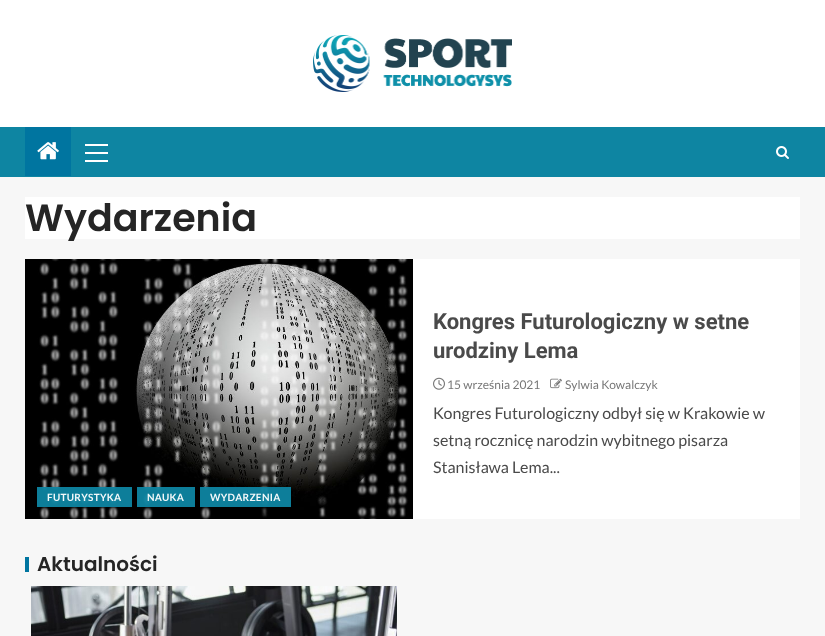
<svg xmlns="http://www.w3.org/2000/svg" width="825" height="636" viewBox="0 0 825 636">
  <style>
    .t1 { font: 600 38px Poppins; fill: #252525; }
    .t2 { font: bold 22px Roboto; fill: #4a4a4a; }
    .t3 { font: 12px Lato; fill: #777; }
    .t4 { font: 16px Lato; fill: #4a4a4a; }
    .t5 { font: bold 10px Lato; letter-spacing: 0.3px; fill: #f3f9fa; }
    .t6 { font: 600 20px Poppins; fill: #252525; }
  </style>
  <rect width="100%" height="100%" fill="#f7f7f7"/>
  <rect x="0" y="0" width="825" height="127" fill="#fff"/>
  <image x="313" y="35" width="199" height="57" href="images/1.png"/>
  <rect x="0" y="127" width="825" height="50" fill="#0e85a2"/>
  <rect x="25" y="127" width="46" height="49" fill="#0075a0"/>
  <image x="37" y="142" width="22" height="18" href="images/2.png"/>
  <rect x="85" y="152" width="23" height="2" fill="#fff"/>
  <rect x="85" y="144" width="23" height="2" fill="#fff"/>
  <rect x="85" y="160" width="23" height="2" fill="#fff"/>
  <image x="776" y="146" width="13" height="13" href="images/3.png"/>
  <rect x="25" y="197" width="775" height="42" fill="#fff"/>
  <text x="25" y="231" class="t1">Wydarzenia</text>
  <rect x="413" y="259" width="387" height="260" fill="#fff"/>
  <text x="433" y="329" class="t2">Kongres Futurologiczny w setne</text>
  <text x="433" y="358" class="t2">urodziny Lema</text>
  <image x="433" y="377" width="12" height="13" href="images/4.png"/>
  <text x="447" y="389" class="t3">15 września 2021</text>
  <image x="550" y="378" width="12" height="11" href="images/5.png"/>
  <text x="565" y="389" class="t3">Sylwia Kowalczyk</text>
  <text x="433" y="419" class="t4">Kongres Futurologiczny odbył się w Krakowie w</text>
  <text x="433" y="446" class="t4">setną rocznicę narodzin wybitnego pisarza</text>
  <text x="433" y="473" class="t4">Stanisława Lema...</text>
  <image x="25" y="259" width="388" height="260" href="images/6.png"/>
  <rect x="37" y="487" width="95" height="20" fill="#0e85a2f2"/>
  <text x="47" y="501" class="t5">FUTURYSTYKA</text>
  <rect x="137" y="487" width="58" height="20" fill="#0e85a2f2"/>
  <text x="147" y="501" class="t5">NAUKA</text>
  <rect x="200" y="487" width="91" height="20" fill="#0e85a2f2"/>
  <text x="210" y="501" class="t5">WYDARZENIA</text>
  <rect x="25" y="557" width="4" height="15" fill="#0075a0"/>
  <text x="37" y="571" class="t6">Aktualności</text>
  <image x="31" y="586" width="366" height="50" href="images/7.png"/>
</svg>
